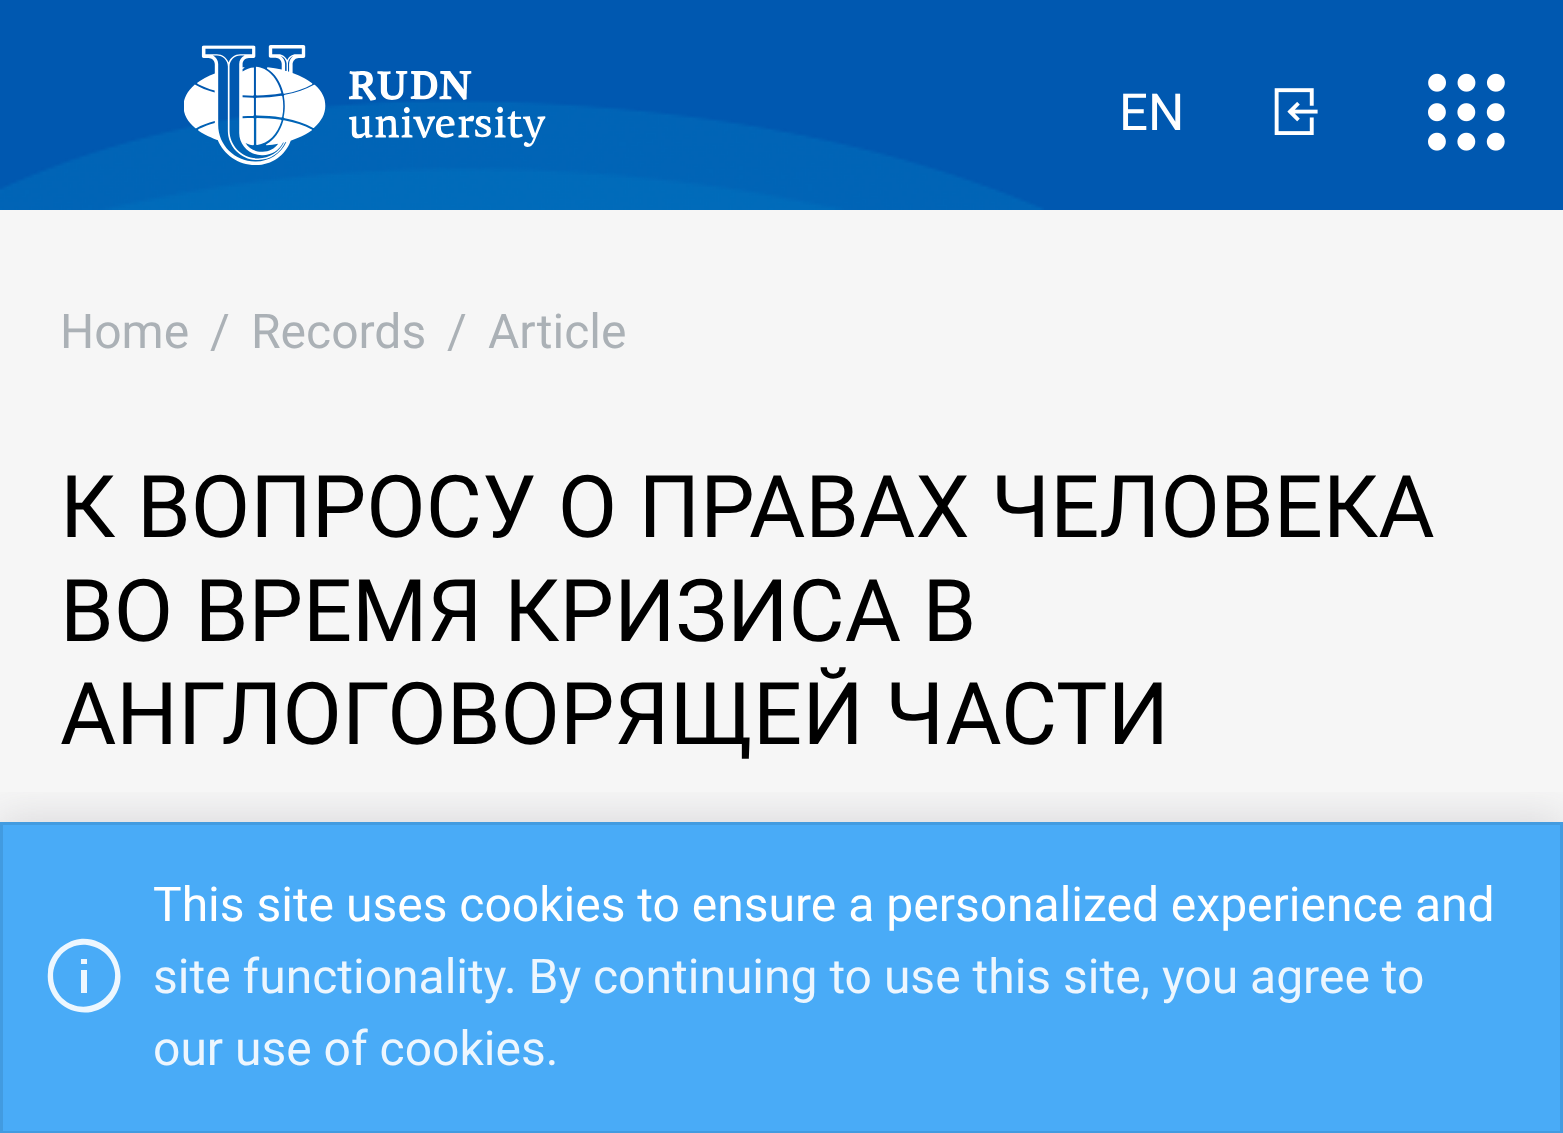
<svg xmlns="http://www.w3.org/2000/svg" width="1563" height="1133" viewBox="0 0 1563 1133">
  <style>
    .t1 { font: 51px Roboto; fill: #fff; }
    .t2 { font: 48px Roboto; fill: #abb1b6; }
    .t3 { font: 86.4px Roboto; fill: #000; }
    .t4 { font: 48px Roboto; fill: #fff; }
    .t5 { font: 48px Roboto; fill: #edf6fe; }
  </style>
  <defs>
    <clipPath id="clip1"><rect x="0" y="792" width="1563" height="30"/></clipPath>
  </defs>
  <rect width="100%" height="100%" fill="#f6f6f6"/>
  <rect x="0" y="0" width="1563" height="210" fill="#0058b0"/>
  <image x="0" y="100" width="1044" height="110" href="images/1.png"/>
  <image x="184" y="45" width="362" height="120" href="images/2.png"/>
  <text x="1119" y="130" class="t1">EN</text>
  <image x="1274" y="88" width="44" height="47" href="images/3.png"/>
  <image x="1428" y="73" width="77" height="78" href="images/4.png"/>
  <text x="60" y="348" class="t2">Home</text>
  <text x="210" y="348" class="t2">/</text>
  <text x="251" y="348" class="t2">Records</text>
  <text x="447" y="348" class="t2">/</text>
  <text x="488" y="348" class="t2">Article</text>
  <text x="60" y="537" class="t3">К ВОПРОСУ О ПРАВАХ ЧЕЛОВЕКА</text>
  <text x="60" y="641" class="t3">ВО ВРЕМЯ КРИЗИСА В</text>
  <text x="60" y="744" class="t3">АНГЛОГОВОРЯЩЕЙ ЧАСТИ</text>
  <g clip-path="url(#clip1)">
    <rect x="-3" y="819" width="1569" height="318" fill="#514d5c2e" filter="blur(22.5px)"/>
  </g>
  <rect x="0" y="822" width="1563" height="311" fill="#36a3f7e6"/>
  <rect x="1.5" y="823.5" width="1560" height="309" fill="none" stroke="#00000017" stroke-width="3"/>
  <path d="M58 950C64 944 72 940 80 939C114 936 134 977 110 1002C86 1026 44 1006 48 972C48 964 52 956 58 950ZM106 954C101 949 94 946 87 945C58 942 42 977 62 998C83 1018 117 1001 115 973C114 965 111 959 106 954ZM81 959H87V964H81ZM81 970H87V993H81Z" fill="#ffffffe6"/>
  <text x="153" y="921" class="t4">This site uses cookies to ensure a personalized experience and</text>
  <text x="153" y="993" class="t5">site functionality. By continuing to use this site, you agree to</text>
  <text x="153" y="1065" class="t5">our use of cookies.</text>
</svg>
